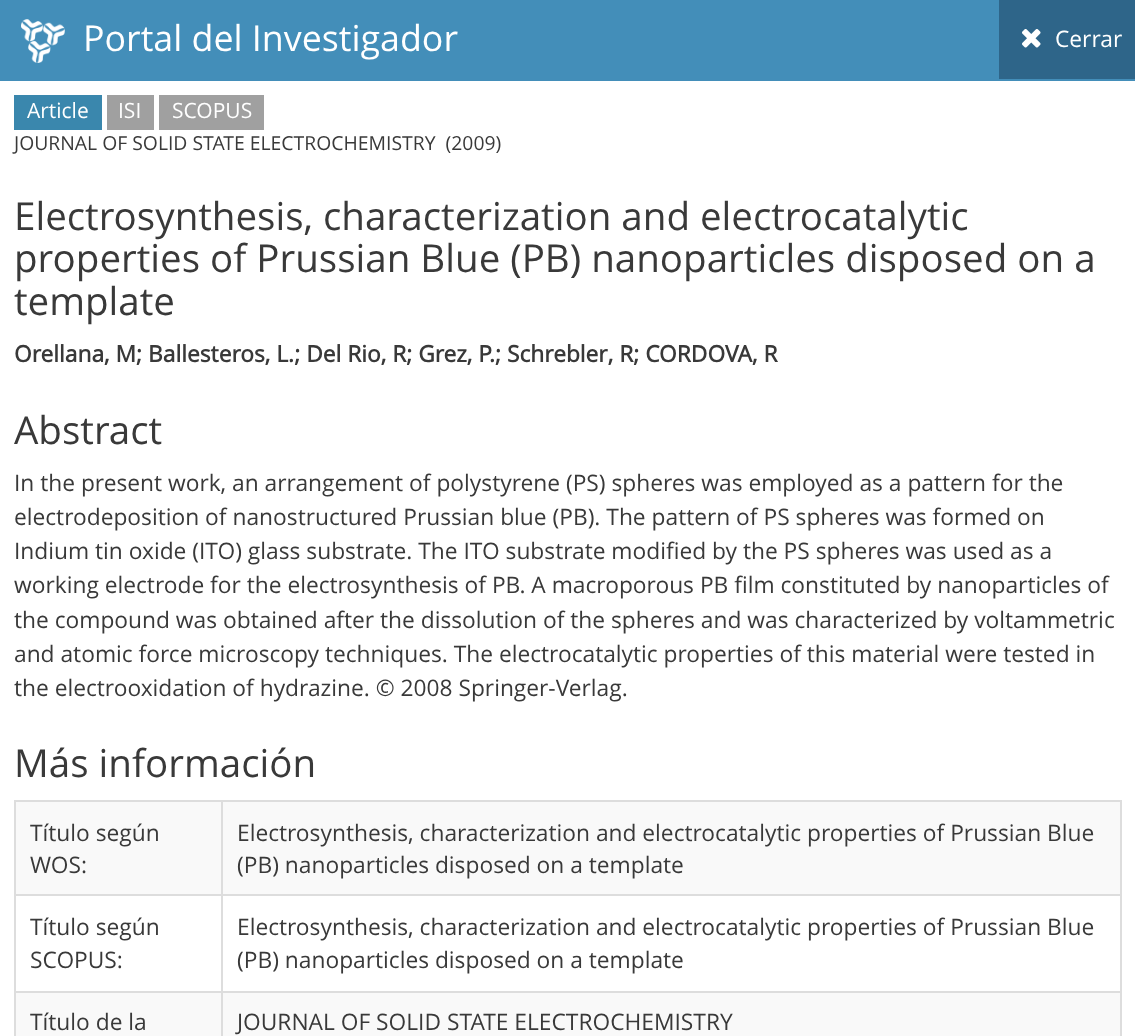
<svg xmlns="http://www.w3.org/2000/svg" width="1135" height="1036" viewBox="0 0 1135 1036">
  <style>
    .t1 { font: 35.75px Open Sans; fill: #fff; }
    .t2 { font: 22.75px Open Sans; fill: #fff; }
    .t3 { font: 21px Open Sans; fill: #fff; }
    .t4 { font: 19.35px Open Sans; fill: #393939; }
    .t5 { font: 38.5px Open Sans; fill: #393939; }
    .t6 { font: bold 22.75px Open Sans; fill: #393939; }
    .t7 { font: 22.75px Open Sans; fill: #393939; }
  </style>
  <rect width="100%" height="100%" fill="#fff"/>
  <rect x="0" y="0" width="1135" height="81" fill="#438eb9"/>
  <image x="21" y="19" width="44" height="44" href="images/1.png"/>
  <text x="83" y="51" class="t1">Portal del Investigador</text>
  <rect x="999" y="0" width="136" height="79" fill="#2e6589"/>
  <image x="1022" y="29" width="19" height="19" href="images/2.png"/>
  <text x="1055" y="47" class="t2">Cerrar</text>
  <rect x="14" y="95" width="88" height="35" fill="#3a87ad"/>
  <text x="27" y="118" class="t3">Article</text>
  <rect x="107" y="95" width="47" height="35" fill="#a0a0a0"/>
  <text x="118" y="118" class="t3">ISI</text>
  <rect x="159" y="95" width="105" height="35" fill="#a0a0a0"/>
  <text x="172" y="118" class="t3">SCOPUS</text>
  <text x="14" y="150" class="t4" xml:space="preserve">JOURNAL OF SOLID STATE ELECTROCHEMISTRY  (2009)</text>
  <text x="14" y="230" class="t5">Electrosynthesis, characterization and electrocatalytic</text>
  <text x="14" y="272" class="t5">properties of Prussian Blue (PB) nanoparticles disposed on a</text>
  <text x="14" y="315" class="t5">template</text>
  <text x="14" y="362" class="t6">Orellana, M; Ballesteros, L.; Del Rio, R; Grez, P.; Schrebler, R; CORDOVA, R</text>
  <text x="14" y="444" class="t5">Abstract</text>
  <text x="14" y="491" class="t7">In the present work, an arrangement of polystyrene (PS) spheres was employed as a pattern for the</text>
  <text x="14" y="525" class="t7">electrodeposition of nanostructured Prussian blue (PB). The pattern of PS spheres was formed on</text>
  <text x="14" y="559" class="t7">Indium tin oxide (ITO) glass substrate. The ITO substrate modified by the PS spheres was used as a</text>
  <text x="14" y="593" class="t7">working electrode for the electrosynthesis of PB. A macroporous PB film constituted by nanoparticles of</text>
  <text x="14" y="628" class="t7">the compound was obtained after the dissolution of the spheres and was characterized by voltammetric</text>
  <text x="14" y="662" class="t7">and atomic force microscopy techniques. The electrocatalytic properties of this material were tested in</text>
  <text x="14" y="696" class="t7">the electrooxidation of hydrazine. © 2008 Springer-Verlag.</text>
  <text x="14" y="777" class="t5">Más información</text>
  <rect x="14" y="800" width="1108" height="2" fill="#ddd"/>
  <rect x="1120" y="800" width="2" height="236" fill="#ddd"/>
  <rect x="14" y="800" width="2" height="236" fill="#ddd"/>
  <rect x="16" y="802" width="1104" height="92" fill="#f9f9f9"/>
  <text x="30" y="841" class="t7">Título según</text>
  <text x="30" y="873" class="t7">WOS:</text>
  <rect x="221" y="894" width="901" height="2" fill="#ddd"/>
  <rect x="221" y="991" width="901" height="2" fill="#ddd"/>
  <rect x="16" y="993" width="1104" height="43" fill="#f9f9f9"/>
  <rect x="221" y="991" width="2" height="45" fill="#ddd"/>
  <rect x="14" y="991" width="208" height="2" fill="#ddd"/>
  <rect x="221" y="894" width="2" height="98" fill="#ddd"/>
  <rect x="14" y="894" width="208" height="2" fill="#ddd"/>
  <rect x="221" y="800" width="2" height="96" fill="#ddd"/>
  <text x="237" y="841" class="t7">Electrosynthesis, characterization and electrocatalytic properties of Prussian Blue</text>
  <text x="237" y="873" class="t7">(PB) nanoparticles disposed on a template</text>
  <text x="30" y="935" class="t7">Título según</text>
  <text x="30" y="968" class="t7">SCOPUS:</text>
  <text x="237" y="935" class="t7">Electrosynthesis, characterization and electrocatalytic properties of Prussian Blue</text>
  <text x="237" y="968" class="t7">(PB) nanoparticles disposed on a template</text>
  <text x="30" y="1030" class="t7">Título de la</text>
  <text x="237" y="1030" class="t7">JOURNAL OF SOLID STATE ELECTROCHEMISTRY</text>
</svg>
